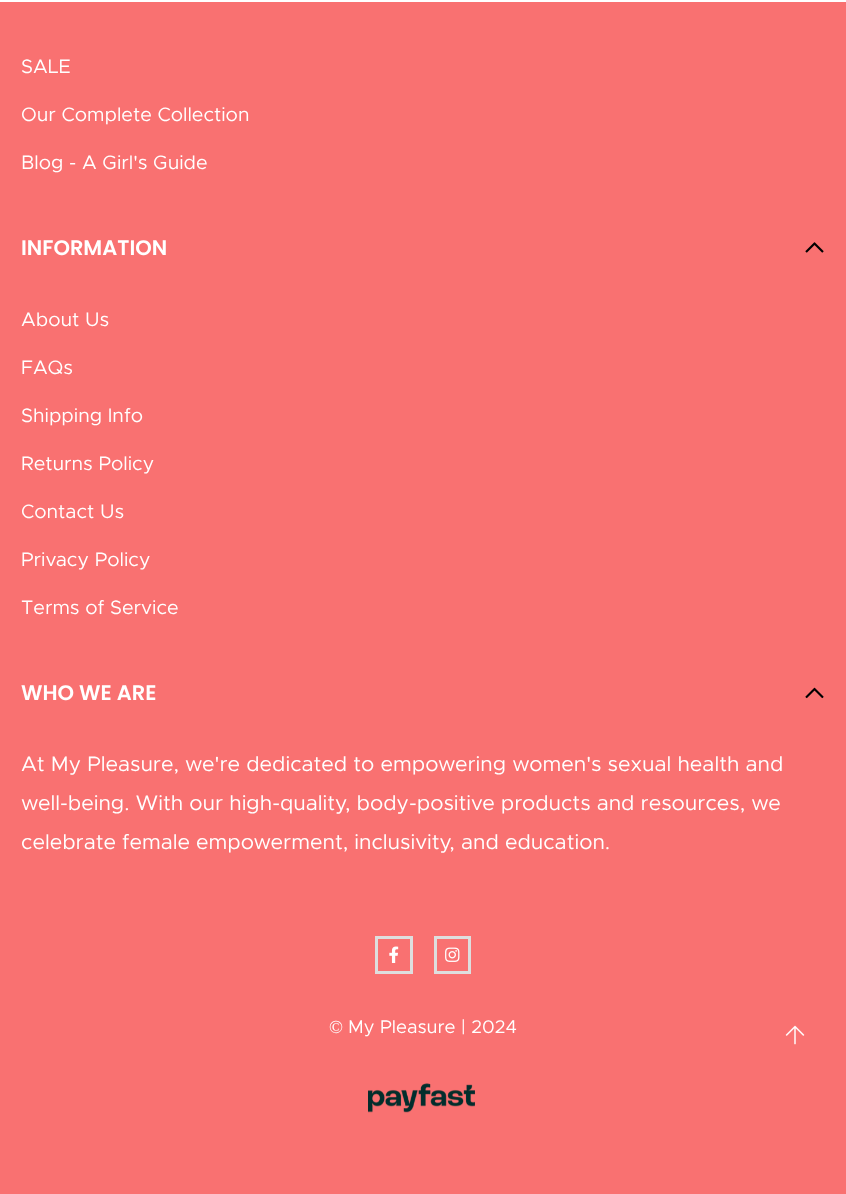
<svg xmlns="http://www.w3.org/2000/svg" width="846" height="1194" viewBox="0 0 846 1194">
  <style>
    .t1 { font: 19.5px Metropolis; fill: #fff; }
    .t2 { font: 600 21px Poppins; fill: #fff; }
    .t3 { font: 21px Metropolis; fill: #fff; }
    .t4 { font: 18.4px Liberation Serif; fill: #fff; }
    .t5 { font: 18.4px Metropolis; fill: #fff; }
  </style>
  <rect width="100%" height="100%" fill="#f97171"/>
  <rect x="0" y="0" width="846" height="2" fill="#fff"/>
  <text x="21" y="73" class="t1">SALE</text>
  <text x="21" y="121" class="t1">Our Complete Collection</text>
  <text x="21" y="169" class="t1">Blog - A Girl's Guide</text>
  <text x="21" y="255" class="t2">INFORMATION</text>
  <image x="805" y="242" width="19" height="11" href="images/1.png"/>
  <text x="21" y="326" class="t1">About Us</text>
  <text x="21" y="374" class="t1">FAQs</text>
  <text x="21" y="422" class="t1">Shipping Info</text>
  <text x="21" y="470" class="t1">Returns Policy</text>
  <text x="21" y="518" class="t1">Contact Us</text>
  <text x="21" y="566" class="t1">Privacy Policy</text>
  <text x="21" y="614" class="t1">Terms of Service</text>
  <text x="21" y="700" class="t2">WHO WE ARE</text>
  <image x="805" y="687" width="19" height="12" href="images/2.png"/>
  <text x="21" y="771" class="t3">At My Pleasure, we're dedicated to empowering women's sexual health and</text>
  <text x="21" y="810" class="t3">well-being. With our high-quality, body-positive products and resources, we</text>
  <text x="21" y="849" class="t3">celebrate female empowerment, inclusivity, and education.</text>
  <rect x="376.5" y="937.5" width="35" height="35" fill="none" stroke="#dedede" stroke-width="3"/>
  <image x="389" y="946" width="10" height="17" href="images/3.png"/>
  <rect x="435.5" y="937.5" width="34" height="35" fill="none" stroke="#dedede" stroke-width="3"/>
  <image x="445" y="947" width="15" height="15" href="images/4.png"/>
  <text x="329" y="1033" class="t4">©</text>
  <text x="348" y="1033" class="t5">My Pleasure | 2024</text>
  <image x="368" y="1083" width="107" height="30" href="images/5.png"/>
  <image x="785" y="1025" width="20" height="20" href="images/6.png"/>
</svg>
